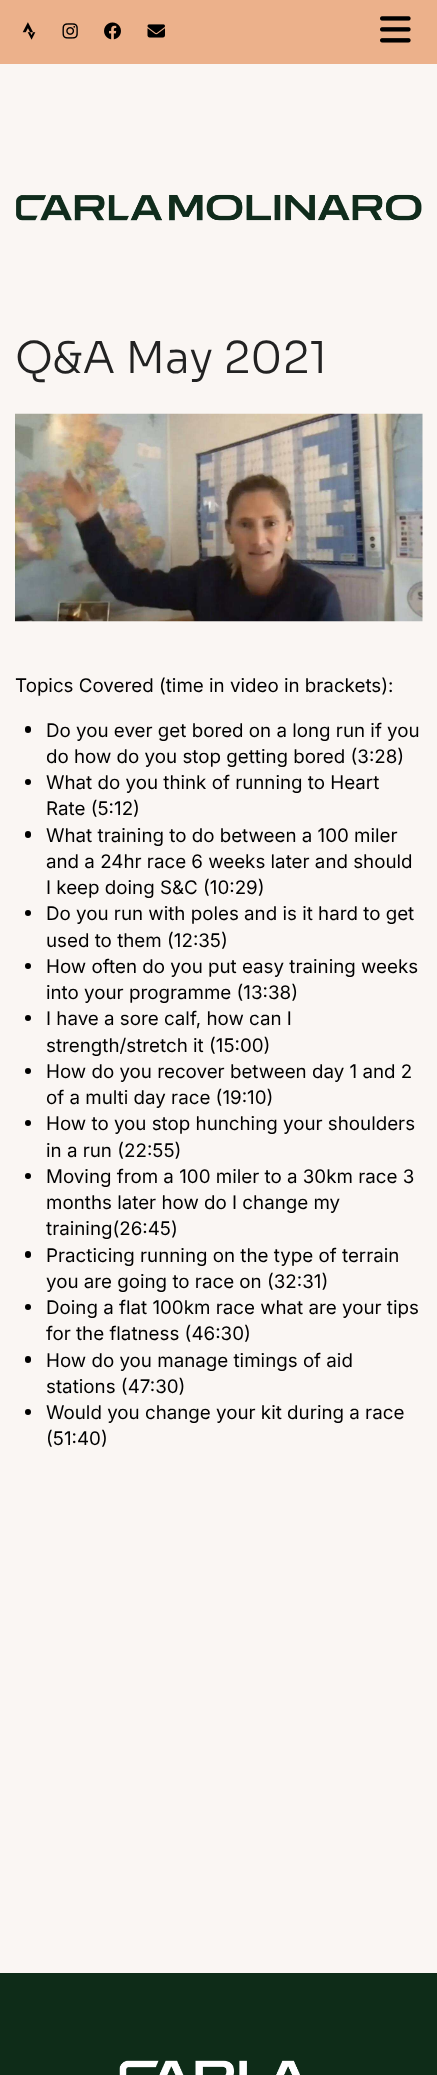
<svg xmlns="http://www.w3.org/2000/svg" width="437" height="2075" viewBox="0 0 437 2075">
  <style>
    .t1 { font: 300 43.75px Sora; fill: #222; }
    .t2 { font: 18.75px Inter; fill: #000; }
  </style>
  <rect width="100%" height="100%" fill="#faf6f3"/>
  <rect x="0" y="0" width="437" height="64" fill="#ecb18b"/>
  <image x="22" y="22" width="14" height="18" href="images/1.png"/>
  <image x="62" y="23" width="16" height="16" href="images/2.png"/>
  <image x="104" y="22" width="17" height="18" href="images/3.png"/>
  <image x="147" y="24" width="18" height="14" href="images/4.png"/>
  <image x="380" y="16" width="31" height="27" href="images/5.png"/>
  <image x="16" y="194" width="406" height="27" href="images/6.png"/>
  <text x="15" y="373" class="t1">Q&amp;A May 2021</text>
  <image x="15" y="413" width="408" height="209" href="images/7.png"/>
  <text x="15" y="692" class="t2">Topics Covered (time in video in brackets):</text>
  <rect x="25" y="726" width="6" height="7" rx="3" fill="#000"/>
  <text x="46" y="737" class="t2">Do you ever get bored on a long run if you</text>
  <text x="46" y="763" class="t2">do how do you stop getting bored (3:28)</text>
  <circle cx="28" cy="782" r="3" fill="#000"/>
  <text x="46" y="789" class="t2">What do you think of running to Heart</text>
  <text x="46" y="815" class="t2">Rate (5:12)</text>
  <rect x="25" y="831" width="6" height="7" rx="3" fill="#000"/>
  <text x="46" y="842" class="t2">What training to do between a 100 miler</text>
  <text x="46" y="868" class="t2">and a 24hr race 6 weeks later and should</text>
  <text x="46" y="894" class="t2">I keep doing S&amp;C (10:29)</text>
  <circle cx="28" cy="913" r="3" fill="#000"/>
  <text x="46" y="920" class="t2">Do you run with poles and is it hard to get</text>
  <text x="46" y="947" class="t2">used to them (12:35)</text>
  <circle cx="28" cy="966" r="3" fill="#000"/>
  <text x="46" y="973" class="t2">How often do you put easy training weeks</text>
  <text x="46" y="999" class="t2">into your programme (13:38)</text>
  <circle cx="28" cy="1018" r="3" fill="#000"/>
  <text x="46" y="1025" class="t2">I have a sore calf, how can I</text>
  <text x="46" y="1052" class="t2">strength/stretch it (15:00)</text>
  <circle cx="28" cy="1071" r="3" fill="#000"/>
  <text x="46" y="1078" class="t2">How do you recover between day 1 and 2</text>
  <text x="46" y="1104" class="t2">of a multi day race (19:10)</text>
  <circle cx="28" cy="1123" r="3" fill="#000"/>
  <text x="46" y="1130" class="t2">How to you stop hunching your shoulders</text>
  <text x="46" y="1157" class="t2">in a run (22:55)</text>
  <circle cx="28" cy="1176" r="3" fill="#000"/>
  <text x="46" y="1183" class="t2">Moving from a 100 miler to a 30km race 3</text>
  <text x="46" y="1209" class="t2">months later how do I change my</text>
  <text x="46" y="1235" class="t2">training(26:45)</text>
  <rect x="25" y="1251" width="6" height="7" rx="3" fill="#000"/>
  <text x="46" y="1262" class="t2">Practicing running on the type of terrain</text>
  <text x="46" y="1288" class="t2">you are going to race on (32:31)</text>
  <circle cx="28" cy="1307" r="3" fill="#000"/>
  <text x="46" y="1314" class="t2">Doing a flat 100km race what are your tips</text>
  <text x="46" y="1340" class="t2">for the flatness (46:30)</text>
  <rect x="25" y="1356" width="6" height="7" rx="3" fill="#000"/>
  <text x="46" y="1367" class="t2">How do you manage timings of aid</text>
  <text x="46" y="1393" class="t2">stations (47:30)</text>
  <circle cx="28" cy="1412" r="3" fill="#000"/>
  <text x="46" y="1419" class="t2">Would you change your kit during a race</text>
  <text x="46" y="1445" class="t2">(51:40)</text>
  <rect x="0" y="1973" width="437" height="102" fill="#0e2c18"/>
  <image x="119" y="2060" width="181" height="15" href="images/8.png"/>
</svg>
